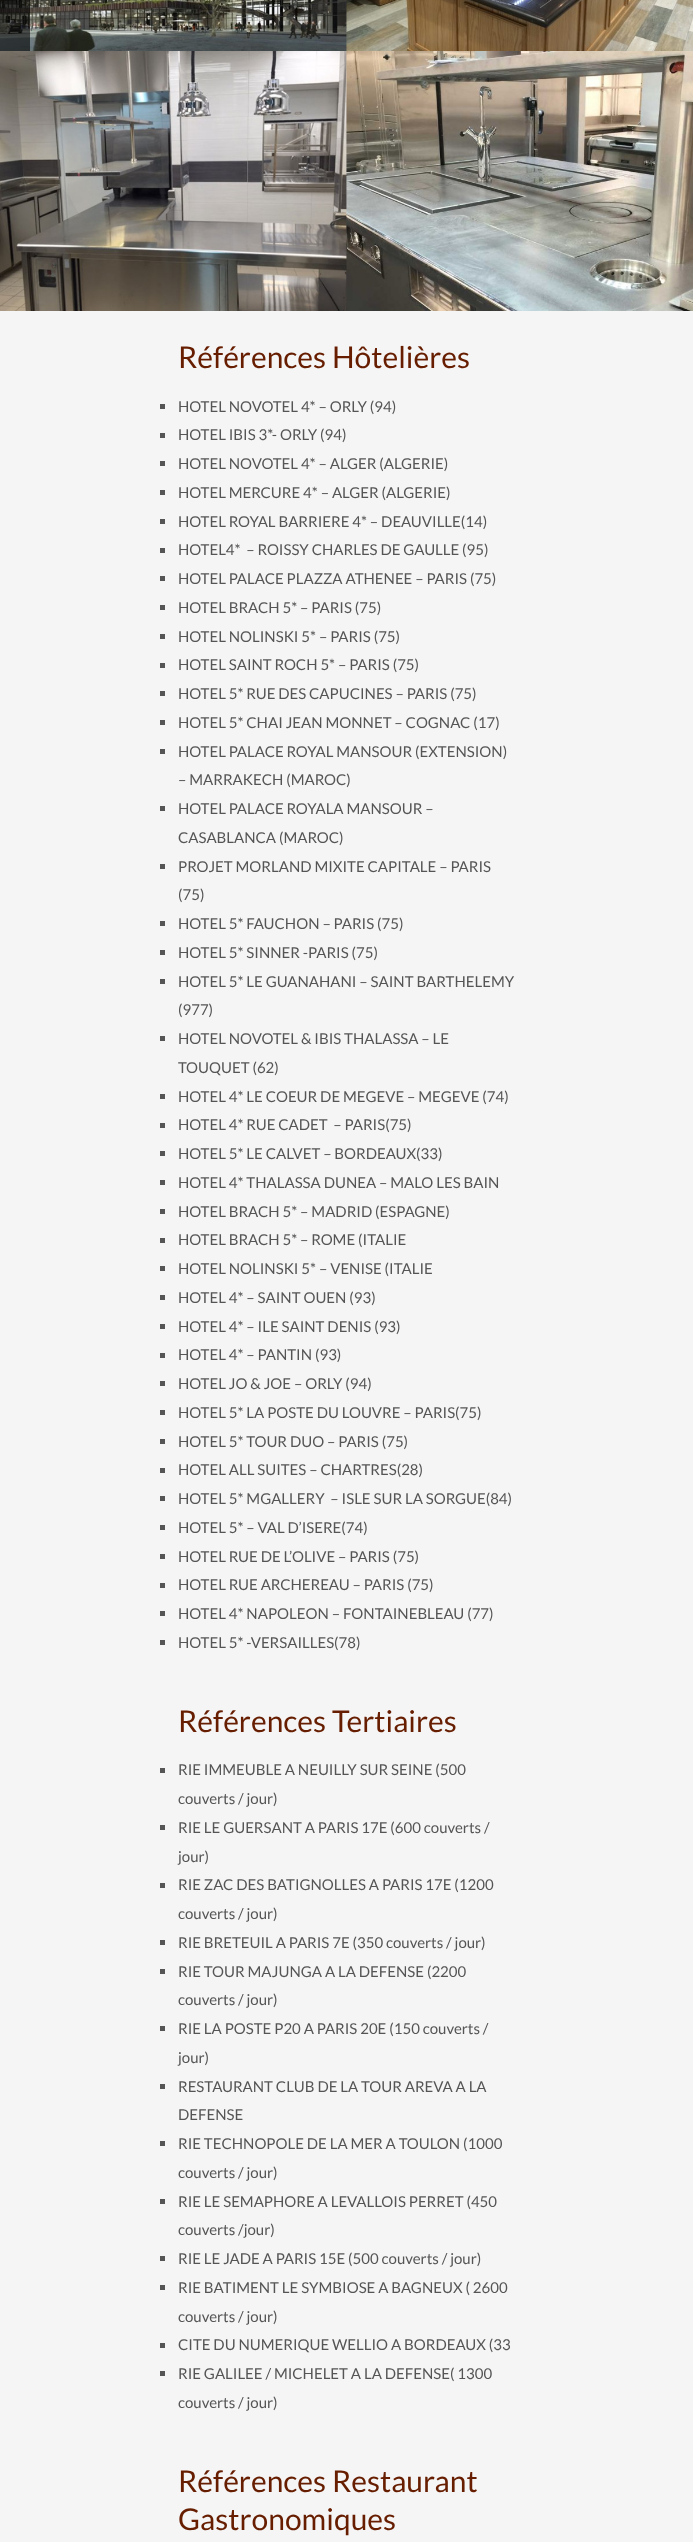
<svg xmlns="http://www.w3.org/2000/svg" width="693" height="2542" viewBox="0 0 693 2542">
  <style>
    .t1 { font: 30px Lato; fill: #671e00; }
    .t2 { font: 15px Lato; fill: #555; }
  </style>
  <rect width="100%" height="100%" fill="#f5f5f5"/>
  <image x="0" y="0" width="347" height="51" href="images/1.png"/>
  <rect x="0" y="0" width="30" height="51" fill="#00000099"/>
  <image x="346" y="0" width="347" height="51" href="images/2.png"/>
  <image x="0" y="51" width="347" height="260" href="images/3.png"/>
  <image x="346" y="51" width="347" height="260" href="images/4.png"/>
  <text x="178" y="368" class="t1">Références Hôtelières</text>
  <rect x="160" y="404" width="5" height="5" fill="#555"/>
  <text x="178" y="412" class="t2">HOTEL NOVOTEL 4* – ORLY (94)</text>
  <rect x="160" y="433" width="5" height="5" fill="#555"/>
  <text x="178" y="440" class="t2">HOTEL IBIS 3*- ORLY (94)</text>
  <rect x="160" y="461" width="5" height="5" fill="#555"/>
  <text x="178" y="469" class="t2">HOTEL NOVOTEL 4* – ALGER (ALGERIE)</text>
  <rect x="160" y="490" width="5" height="5" fill="#555"/>
  <text x="178" y="498" class="t2">HOTEL MERCURE 4* – ALGER (ALGERIE)</text>
  <rect x="160" y="519" width="5" height="5" fill="#555"/>
  <text x="178" y="527" class="t2">HOTEL ROYAL BARRIERE 4* – DEAUVILLE(14)</text>
  <rect x="160" y="548" width="5" height="5" fill="#555"/>
  <text x="178" y="555" class="t2" xml:space="preserve">HOTEL4*  – ROISSY CHARLES DE GAULLE (95)</text>
  <rect x="160" y="576" width="5" height="5" fill="#555"/>
  <text x="178" y="584" class="t2">HOTEL PALACE PLAZZA ATHENEE – PARIS (75)</text>
  <rect x="160" y="605" width="5" height="5" fill="#555"/>
  <text x="178" y="613" class="t2">HOTEL BRACH 5* – PARIS (75)</text>
  <rect x="160" y="634" width="5" height="5" fill="#555"/>
  <text x="178" y="642" class="t2">HOTEL NOLINSKI 5* – PARIS (75)</text>
  <rect x="160" y="663" width="5" height="5" fill="#555"/>
  <text x="178" y="670" class="t2">HOTEL SAINT ROCH 5* – PARIS (75)</text>
  <rect x="160" y="691" width="5" height="5" fill="#555"/>
  <text x="178" y="699" class="t2">HOTEL 5* RUE DES CAPUCINES – PARIS (75)</text>
  <rect x="160" y="720" width="5" height="5" fill="#555"/>
  <text x="178" y="728" class="t2">HOTEL 5* CHAI JEAN MONNET – COGNAC (17)</text>
  <rect x="160" y="749" width="5" height="5" fill="#555"/>
  <text x="178" y="757" class="t2">HOTEL PALACE ROYAL MANSOUR (EXTENSION)</text>
  <text x="178" y="785" class="t2">– MARRAKECH (MAROC)</text>
  <rect x="160" y="806" width="5" height="5" fill="#555"/>
  <text x="178" y="814" class="t2">HOTEL PALACE ROYALA MANSOUR –</text>
  <text x="178" y="843" class="t2">CASABLANCA (MAROC)</text>
  <rect x="160" y="864" width="5" height="5" fill="#555"/>
  <text x="178" y="872" class="t2">PROJET MORLAND MIXITE CAPITALE – PARIS</text>
  <text x="178" y="900" class="t2">(75)</text>
  <rect x="160" y="921" width="5" height="5" fill="#555"/>
  <text x="178" y="929" class="t2">HOTEL 5* FAUCHON – PARIS (75)</text>
  <rect x="160" y="950" width="5" height="5" fill="#555"/>
  <text x="178" y="958" class="t2">HOTEL 5* SINNER -PARIS (75)</text>
  <rect x="160" y="979" width="5" height="5" fill="#555"/>
  <text x="178" y="987" class="t2">HOTEL 5* LE GUANAHANI – SAINT BARTHELEMY</text>
  <text x="178" y="1015" class="t2">(977)</text>
  <rect x="160" y="1036" width="5" height="5" fill="#555"/>
  <text x="178" y="1044" class="t2">HOTEL NOVOTEL &amp; IBIS THALASSA – LE</text>
  <text x="178" y="1073" class="t2">TOUQUET (62)</text>
  <rect x="160" y="1094" width="5" height="5" fill="#555"/>
  <text x="178" y="1102" class="t2">HOTEL 4* LE COEUR DE MEGEVE – MEGEVE (74)</text>
  <rect x="160" y="1123" width="5" height="5" fill="#555"/>
  <text x="178" y="1130" class="t2" xml:space="preserve">HOTEL 4* RUE CADET  – PARIS(75)</text>
  <rect x="160" y="1151" width="5" height="5" fill="#555"/>
  <text x="178" y="1159" class="t2">HOTEL 5* LE CALVET – BORDEAUX(33)</text>
  <rect x="160" y="1180" width="5" height="5" fill="#555"/>
  <text x="178" y="1188" class="t2">HOTEL 4* THALASSA DUNEA – MALO LES BAIN</text>
  <rect x="160" y="1209" width="5" height="5" fill="#555"/>
  <text x="178" y="1217" class="t2">HOTEL BRACH 5* – MADRID (ESPAGNE)</text>
  <rect x="160" y="1238" width="5" height="5" fill="#555"/>
  <text x="178" y="1245" class="t2">HOTEL BRACH 5* – ROME (ITALIE</text>
  <rect x="160" y="1266" width="5" height="5" fill="#555"/>
  <text x="178" y="1274" class="t2">HOTEL NOLINSKI 5* – VENISE (ITALIE</text>
  <rect x="160" y="1295" width="5" height="5" fill="#555"/>
  <text x="178" y="1303" class="t2">HOTEL 4* – SAINT OUEN (93)</text>
  <rect x="160" y="1324" width="5" height="5" fill="#555"/>
  <text x="178" y="1332" class="t2">HOTEL 4* – ILE SAINT DENIS (93)</text>
  <rect x="160" y="1353" width="5" height="5" fill="#555"/>
  <text x="178" y="1360" class="t2">HOTEL 4* – PANTIN (93)</text>
  <rect x="160" y="1381" width="5" height="5" fill="#555"/>
  <text x="178" y="1389" class="t2">HOTEL JO &amp; JOE – ORLY (94)</text>
  <rect x="160" y="1410" width="5" height="5" fill="#555"/>
  <text x="178" y="1418" class="t2">HOTEL 5* LA POSTE DU LOUVRE – PARIS(75)</text>
  <rect x="160" y="1439" width="5" height="5" fill="#555"/>
  <text x="178" y="1447" class="t2">HOTEL 5* TOUR DUO – PARIS (75)</text>
  <rect x="160" y="1468" width="5" height="5" fill="#555"/>
  <text x="178" y="1475" class="t2">HOTEL ALL SUITES – CHARTRES(28)</text>
  <rect x="160" y="1496" width="5" height="5" fill="#555"/>
  <text x="178" y="1504" class="t2" xml:space="preserve">HOTEL 5* MGALLERY  – ISLE SUR LA SORGUE(84)</text>
  <rect x="160" y="1525" width="5" height="5" fill="#555"/>
  <text x="178" y="1533" class="t2">HOTEL 5* – VAL D’ISERE(74)</text>
  <rect x="160" y="1554" width="5" height="5" fill="#555"/>
  <text x="178" y="1562" class="t2">HOTEL RUE DE L’OLIVE – PARIS (75)</text>
  <rect x="160" y="1583" width="5" height="5" fill="#555"/>
  <text x="178" y="1590" class="t2">HOTEL RUE ARCHEREAU – PARIS (75)</text>
  <rect x="160" y="1611" width="5" height="5" fill="#555"/>
  <text x="178" y="1619" class="t2">HOTEL 4* NAPOLEON – FONTAINEBLEAU (77)</text>
  <rect x="160" y="1640" width="5" height="5" fill="#555"/>
  <text x="178" y="1648" class="t2">HOTEL 5* -VERSAILLES(78)</text>
  <text x="178" y="1732" class="t1">Références Tertiaires</text>
  <rect x="160" y="1768" width="5" height="5" fill="#555"/>
  <text x="178" y="1775" class="t2">RIE IMMEUBLE A NEUILLY SUR SEINE (500</text>
  <text x="178" y="1804" class="t2">couverts / jour)</text>
  <rect x="160" y="1825" width="5" height="5" fill="#555"/>
  <text x="178" y="1833" class="t2">RIE LE GUERSANT A PARIS 17E (600 couverts /</text>
  <text x="178" y="1862" class="t2">jour)</text>
  <rect x="160" y="1883" width="5" height="5" fill="#555"/>
  <text x="178" y="1890" class="t2">RIE ZAC DES BATIGNOLLES A PARIS 17E (1200</text>
  <text x="178" y="1919" class="t2">couverts / jour)</text>
  <rect x="160" y="1940" width="5" height="5" fill="#555"/>
  <text x="178" y="1948" class="t2">RIE BRETEUIL A PARIS 7E (350 couverts / jour)</text>
  <rect x="160" y="1969" width="5" height="5" fill="#555"/>
  <text x="178" y="1977" class="t2">RIE TOUR MAJUNGA A LA DEFENSE (2200</text>
  <text x="178" y="2005" class="t2">couverts / jour)</text>
  <rect x="160" y="2026" width="5" height="5" fill="#555"/>
  <text x="178" y="2034" class="t2">RIE LA POSTE P20 A PARIS 20E (150 couverts /</text>
  <text x="178" y="2063" class="t2">jour)</text>
  <rect x="160" y="2084" width="5" height="5" fill="#555"/>
  <text x="178" y="2092" class="t2">RESTAURANT CLUB DE LA TOUR AREVA A LA</text>
  <text x="178" y="2120" class="t2">DEFENSE</text>
  <rect x="160" y="2141" width="5" height="5" fill="#555"/>
  <text x="178" y="2149" class="t2">RIE TECHNOPOLE DE LA MER A TOULON (1000</text>
  <text x="178" y="2178" class="t2">couverts / jour)</text>
  <rect x="160" y="2199" width="5" height="5" fill="#555"/>
  <text x="178" y="2207" class="t2">RIE LE SEMAPHORE A LEVALLOIS PERRET (450</text>
  <text x="178" y="2235" class="t2">couverts /jour)</text>
  <rect x="160" y="2256" width="5" height="5" fill="#555"/>
  <text x="178" y="2264" class="t2">RIE LE JADE A PARIS 15E (500 couverts / jour)</text>
  <rect x="160" y="2285" width="5" height="5" fill="#555"/>
  <text x="178" y="2293" class="t2">RIE BATIMENT LE SYMBIOSE A BAGNEUX ( 2600</text>
  <text x="178" y="2322" class="t2">couverts / jour)</text>
  <rect x="160" y="2343" width="5" height="5" fill="#555"/>
  <text x="178" y="2350" class="t2">CITE DU NUMERIQUE WELLIO A BORDEAUX (33</text>
  <rect x="160" y="2371" width="5" height="5" fill="#555"/>
  <text x="178" y="2379" class="t2">RIE GALILEE / MICHELET A LA DEFENSE( 1300</text>
  <text x="178" y="2408" class="t2">couverts / jour)</text>
  <text x="178" y="2492" class="t1">Références Restaurant</text>
  <text x="178" y="2530" class="t1">Gastronomiques</text>
</svg>
